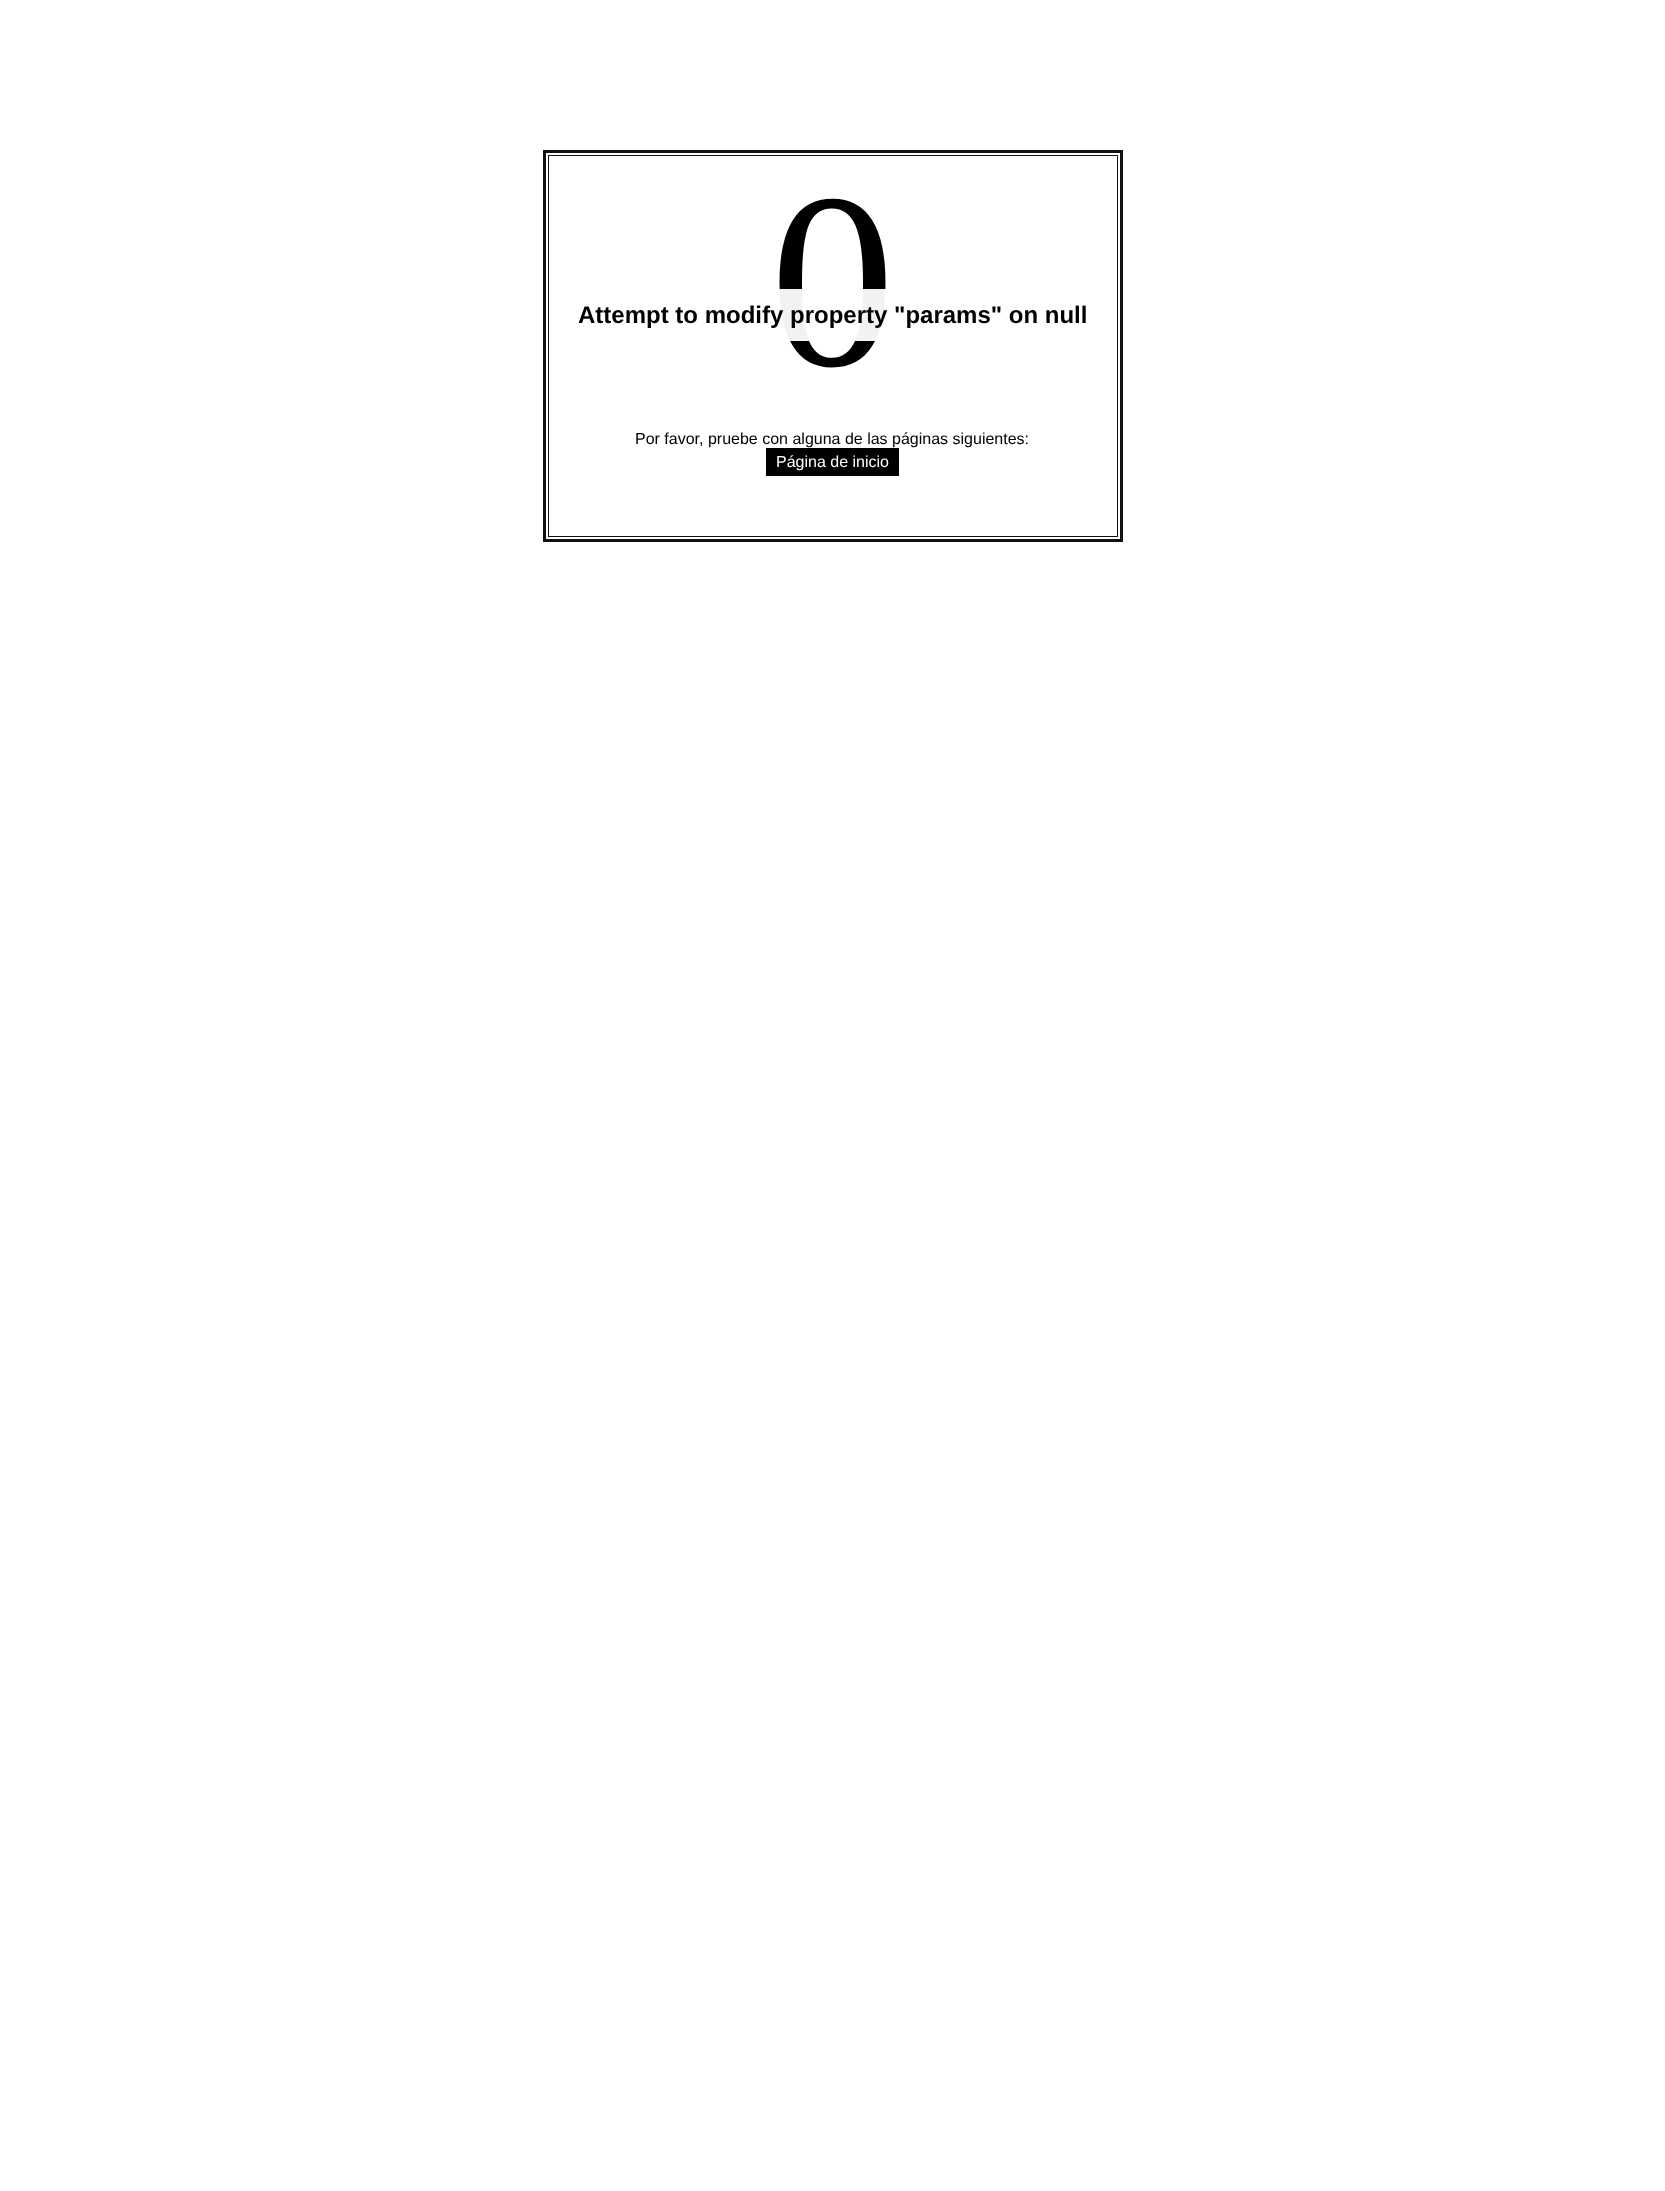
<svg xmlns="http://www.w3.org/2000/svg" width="1665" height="2191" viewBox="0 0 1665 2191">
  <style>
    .t1 { font: 250px Liberation Serif; fill: #000; }
    .t2 { font: bold 24px Liberation Sans; fill: #000; }
    .t3 { font: 16px Liberation Sans; fill: #000; }
    .t4 { font: 16px Liberation Sans; fill: #fff; }
  </style>
  <rect width="100%" height="100%" fill="#fff"/>
  <rect x="544.5" y="151.5" width="577" height="389" fill="none" stroke="#111" stroke-width="3"/>
  <rect x="548.5" y="155.5" width="569" height="381" fill="none" stroke="#111"/>
  <text x="770" y="365" class="t1">0</text>
  <rect x="779" y="289" width="107" height="52" fill="#fffffff2"/>
  <text x="578" y="323" class="t2">Attempt to modify property "params" on null</text>
  <text x="635" y="444" class="t3">Por favor, pruebe con alguna de las páginas siguientes:</text>
  <rect x="766" y="448" width="133" height="28" fill="#000"/>
  <text x="776" y="467" class="t4">Página de inicio</text>
</svg>
